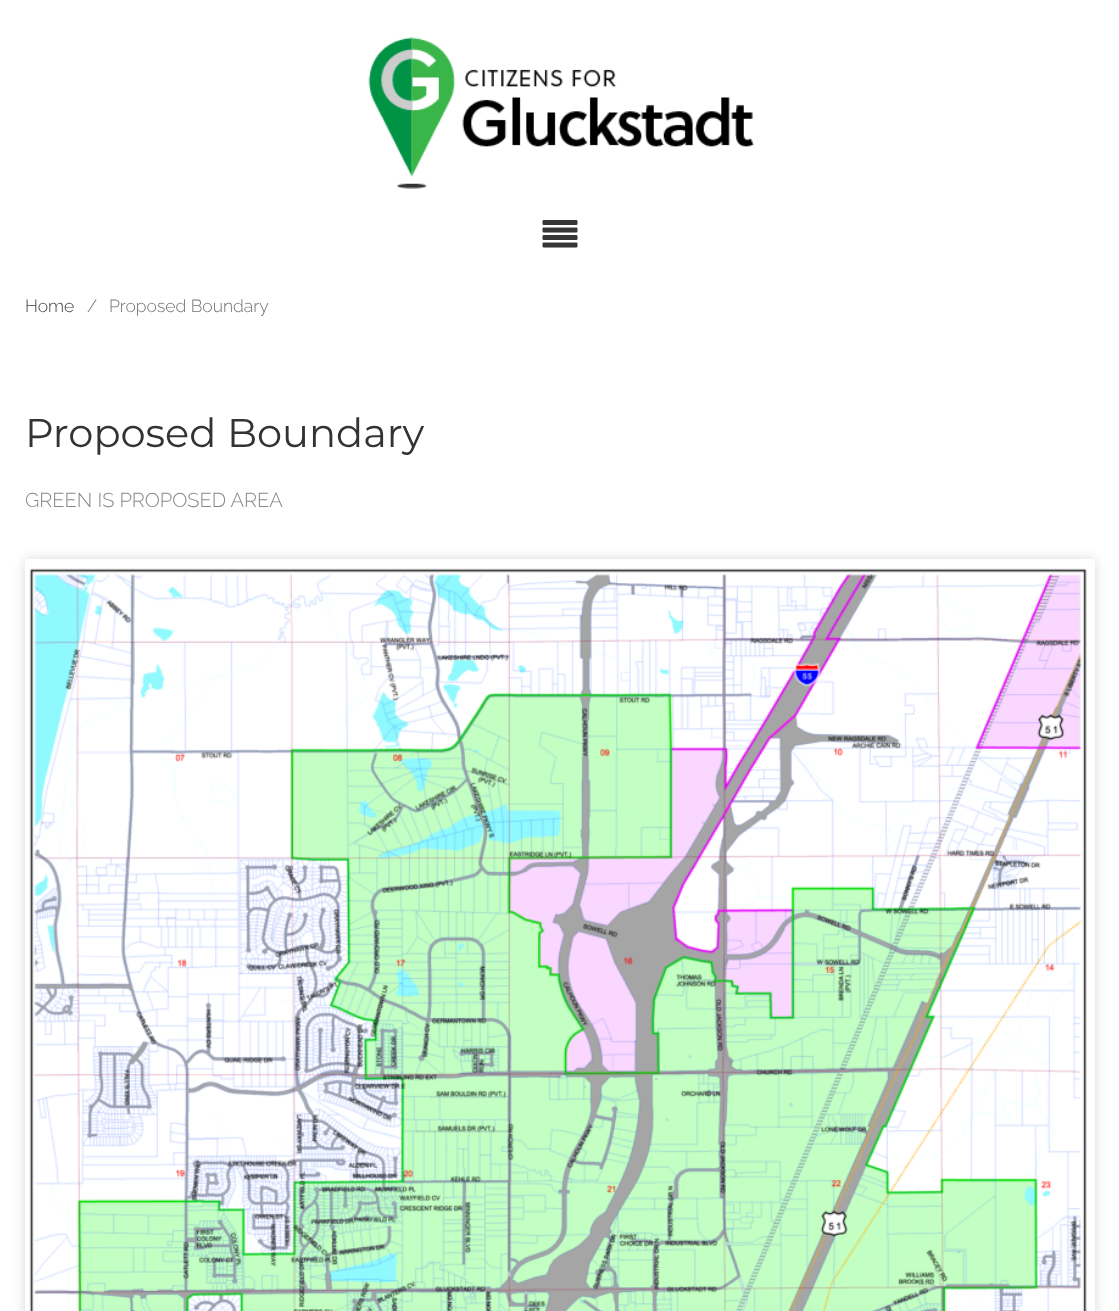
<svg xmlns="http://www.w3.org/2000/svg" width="1119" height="1311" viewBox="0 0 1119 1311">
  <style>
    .t1 { font: 100 17.5px Raleway; fill: #404040; }
    .t2 { font: 100 17.5px Raleway; fill: #737373; }
    .t3 { font: 100 40px Montserrat; fill: #333; }
    .t4 { font: 100 20px Raleway; fill: #888; }
  </style>
  <defs>
    <clipPath id="clip1"><path d="M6 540H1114V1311H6ZM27.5 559H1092.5C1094 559 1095 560 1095 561.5V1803.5C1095 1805 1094 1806 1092.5 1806H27.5C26 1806 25 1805 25 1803.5V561.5C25 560 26 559 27.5 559Z" clip-rule="evenodd"/></clipPath>
  </defs>
  <rect width="100%" height="100%" fill="#fff"/>
  <image x="368" y="37" width="386" height="152" href="images/1.png"/>
  <image x="542" y="220" width="36" height="28" href="images/2.png"/>
  <text x="25" y="312" class="t1">Home</text>
  <text x="87" y="312" class="t2">/</text>
  <text x="109" y="312" class="t2">Proposed Boundary</text>
  <text x="25" y="447" class="t3">Proposed Boundary</text>
  <text x="25" y="507" class="t4">GREEN IS PROPOSED AREA</text>
  <g clip-path="url(#clip1)">
    <rect x="25" y="559" width="1070" height="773" rx="2.5" fill="#00000026" filter="blur(6px)"/>
  </g>
  <image x="29" y="568" width="1058" height="743" href="images/3.png"/>
</svg>
